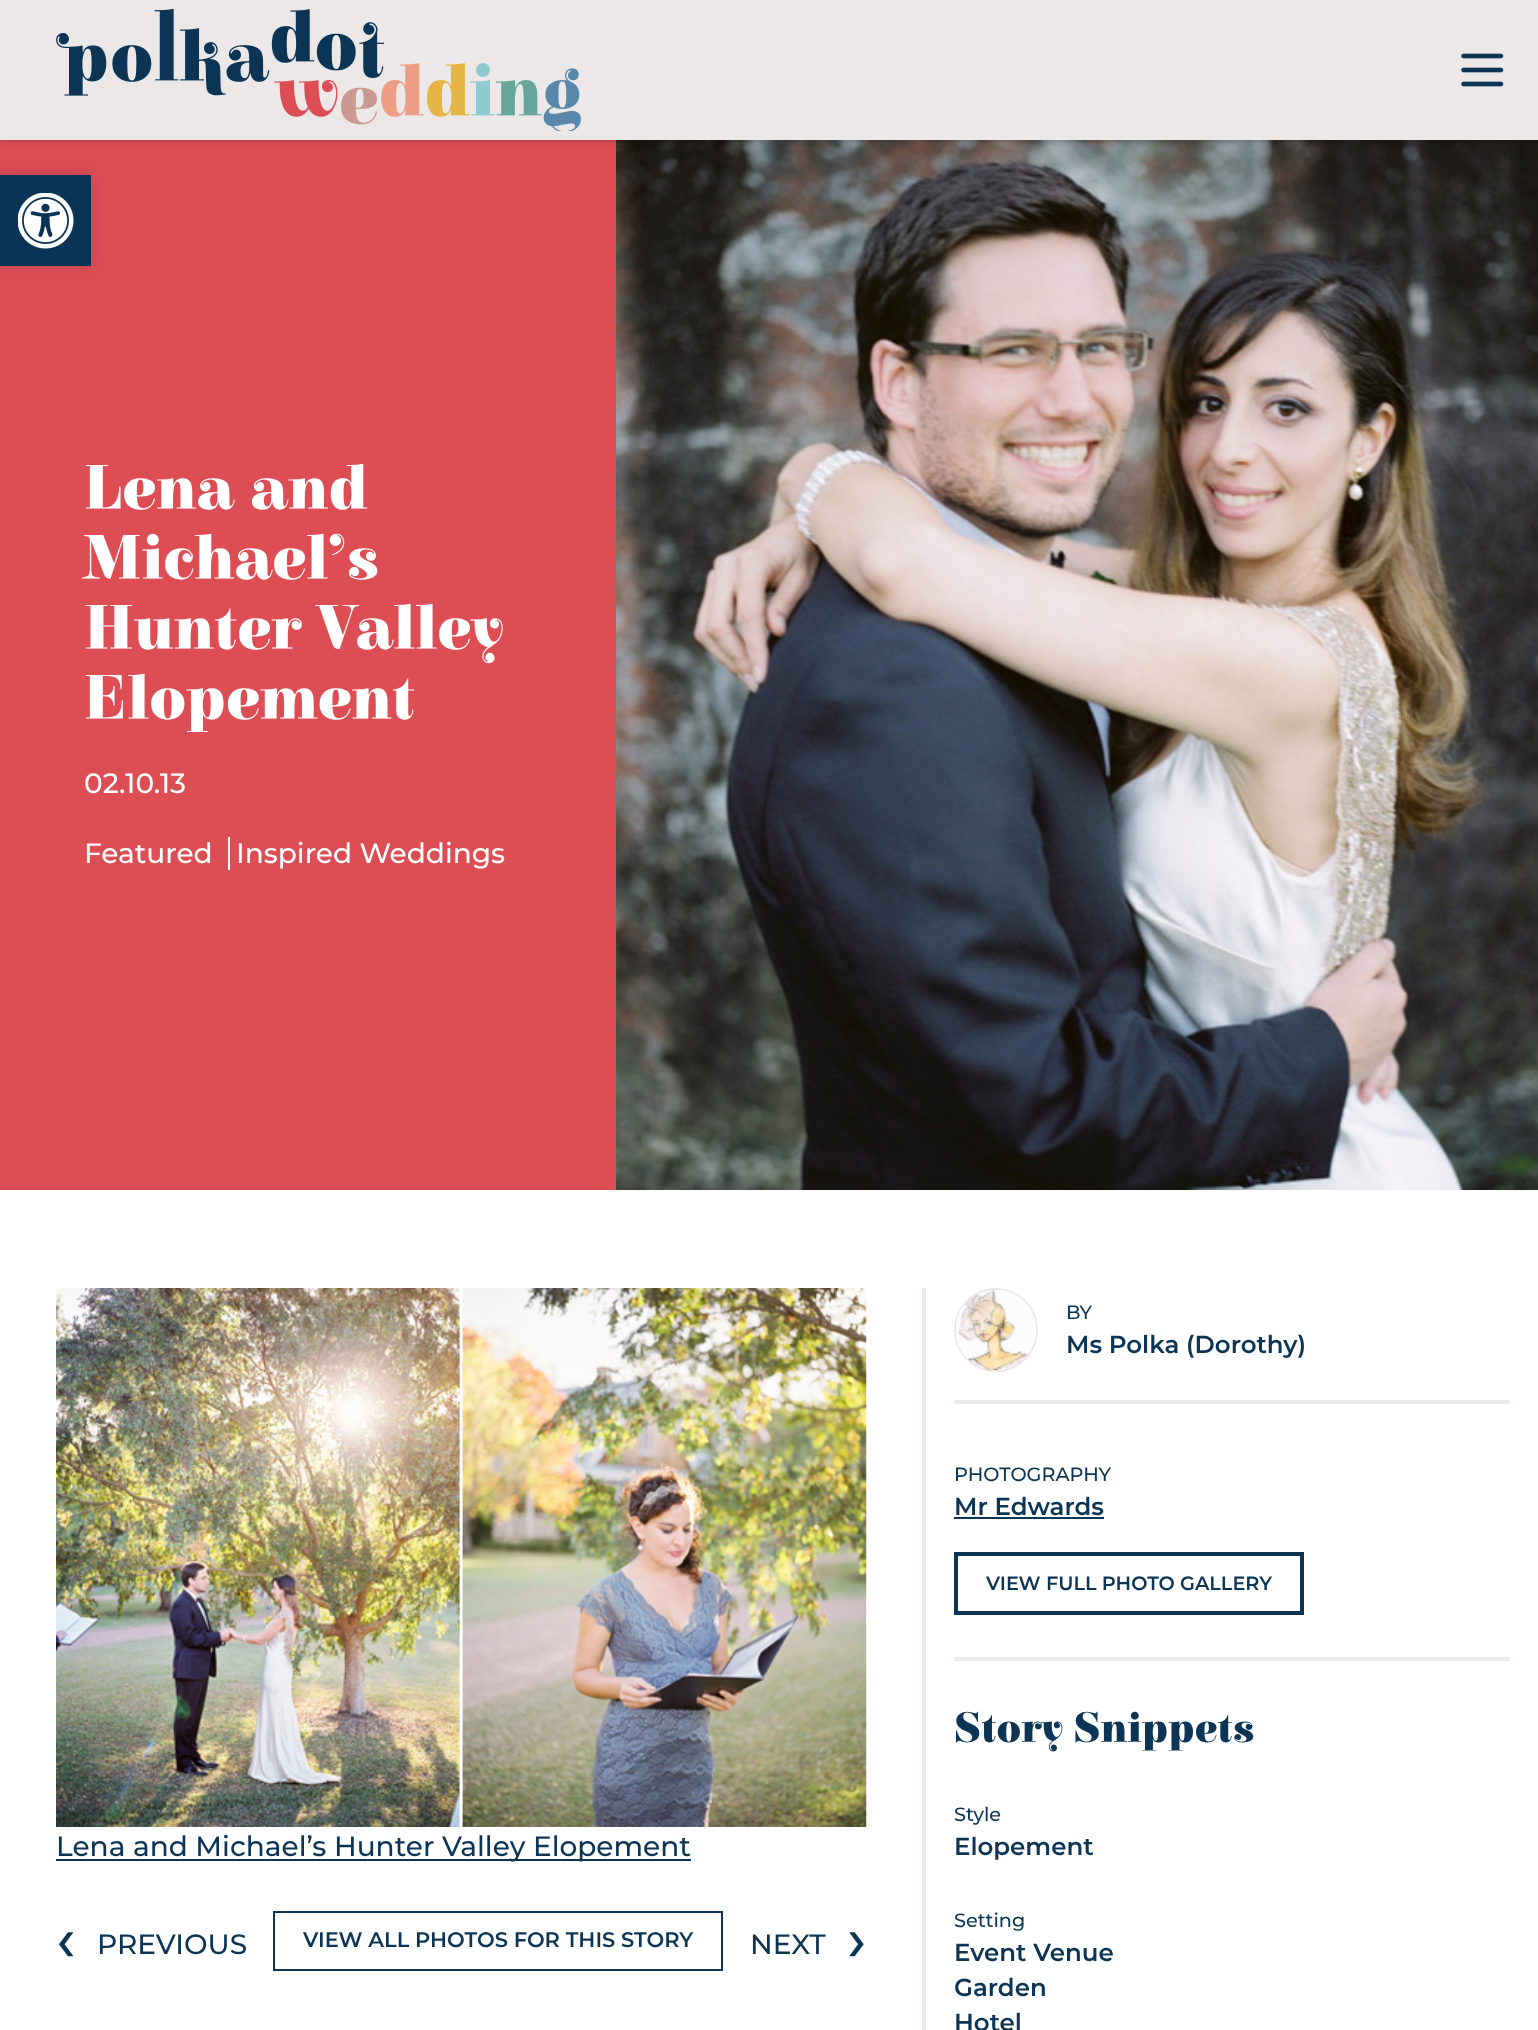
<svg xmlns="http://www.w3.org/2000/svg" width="1538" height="2030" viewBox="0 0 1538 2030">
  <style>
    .t1 { font: 900 63px Elsie; fill: #fff; }
    .t2 { font: 500 28px Montserrat; fill: #fff; }
    .t3 { font: 500 28px Montserrat; fill: #0c3455; }
    .t4 { font: 500 63px Montserrat; fill: #0c3455; }
    .t5 { font: 600 21px Montserrat; fill: #0c3455; }
    .t6 { font: 500 19.25px Montserrat; fill: #0c3455; }
    .t7 { font: 600 24.5px Montserrat; fill: #0c3455; }
    .t8 { font: 600 19.25px Montserrat; fill: #0c3455; }
    .t9 { font: 900 42px Elsie; fill: #0c3455; }
  </style>
  <rect width="100%" height="100%" fill="#fff"/>
  <rect x="0" y="140" width="616" height="1050" fill="#dc4d54"/>
  <image x="616" y="140" width="922" height="1050" href="images/4.png"/>
  <rect x="0" y="2" width="1538" height="140" fill="#0000000f" filter="blur(2px)"/>
  <rect x="0" y="2" width="1538" height="140" fill="#0000001a" filter="blur(2.5px)"/>
  <rect x="0" y="0" width="1538" height="140" fill="#ebe8e7"/>
  <image x="56" y="9" width="525" height="122" href="images/1.png"/>
  <image x="1461" y="53" width="43" height="34" href="images/2.png"/>
  <rect x="0" y="175" width="91" height="91" fill="#0000001a" filter="blur(9px)"/>
  <rect x="0" y="175" width="91" height="91" fill="#0a3456"/>
  <image x="18" y="193" width="56" height="56" href="images/3.png"/>
  <text x="84" y="509" class="t1">Lena and</text>
  <text x="84" y="579" class="t1">Michael’s</text>
  <text x="84" y="649" class="t1">Hunter Valley</text>
  <text x="84" y="719" class="t1">Elopement</text>
  <text x="84" y="793" class="t2">02.10.13</text>
  <text x="84" y="863" class="t2">Featured</text>
  <rect x="228" y="837" width="2" height="33" fill="#fff"/>
  <text x="236" y="863" class="t2">Inspired Weddings</text>
  <image x="56" y="1288" width="811" height="539" href="images/5.png"/>
  <rect x="56" y="1859" width="635" height="2" fill="#0c3455"/>
  <text x="56" y="1856" class="t3">Lena and Michael’s Hunter Valley Elopement</text>
  <text x="56" y="1961" class="t4">‹</text>
  <text x="97" y="1954" class="t3">PREVIOUS</text>
  <rect x="274" y="1912" width="448" height="58" fill="none" stroke="#0c3455" stroke-width="2"/>
  <text x="303" y="1947" class="t5">VIEW ALL PHOTOS FOR THIS STORY</text>
  <text x="750" y="1954" class="t3">NEXT</text>
  <text x="847" y="1961" class="t4">›</text>
  <rect x="922" y="1288" width="4" height="742" fill="#ebe8e7"/>
  <circle cx="996" cy="1330" r="41" fill="none" stroke="#ebe8e7" stroke-width="2"/>
  <image x="955" y="1290" width="81" height="81" href="images/6.png"/>
  <text x="1066" y="1319" class="t6">BY</text>
  <text x="1066" y="1353" class="t7">Ms Polka (Dorothy)</text>
  <rect x="954" y="1400" width="556" height="4" fill="#ebe8e7"/>
  <text x="954" y="1481" class="t6">PHOTOGRAPHY</text>
  <text x="954" y="1515" class="t7">Mr Edwards</text>
  <rect x="954" y="1517" width="150" height="2" fill="#0c3455"/>
  <rect x="956" y="1554" width="346" height="59" fill="none" stroke="#0c3455" stroke-width="4"/>
  <text x="986" y="1590" class="t8">VIEW FULL PHOTO GALLERY</text>
  <rect x="954" y="1657" width="556" height="4" fill="#ebe8e7"/>
  <text x="954" y="1742" class="t9">Story Snippets</text>
  <text x="954" y="1821" class="t6">Style</text>
  <text x="954" y="1855" class="t7">Elopement</text>
  <text x="954" y="1927" class="t6">Setting</text>
  <text x="954" y="1961" class="t7">Event Venue</text>
  <text x="954" y="1996" class="t7">Garden</text>
  <text x="954" y="2031" class="t7">Hotel</text>
</svg>
